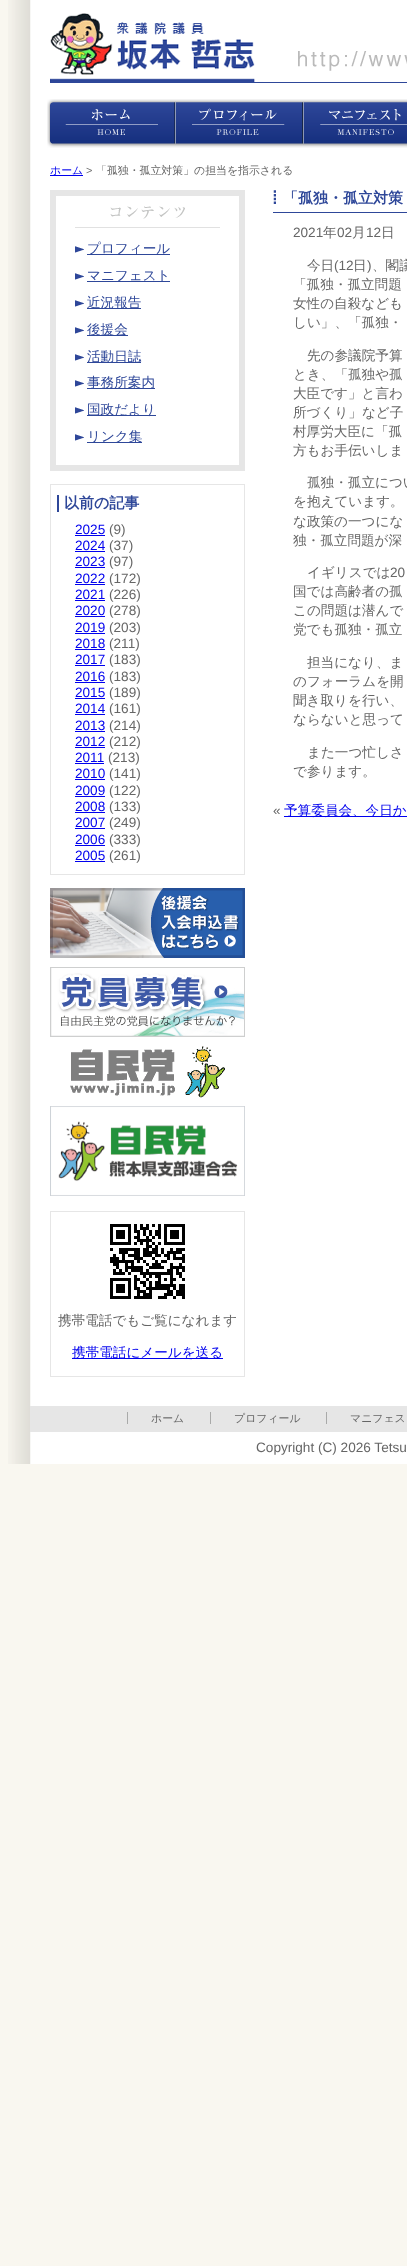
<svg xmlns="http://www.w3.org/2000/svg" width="407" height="2266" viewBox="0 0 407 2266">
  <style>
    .t1 { font: 500 10.9px WenQuanYi Zen Hei; fill: #00e; }
    .t2 { font: 10.9px Liberation Sans; fill: #666; }
    .t3 { font: 500 10.9px WenQuanYi Zen Hei; fill: #666; }
    .t4 { font: 500 13.6px WenQuanYi Zen Hei; fill: #2e4799; }
    .t5 { font: bold 15px WenQuanYi Zen Hei; fill: #2e4799; }
    .t6 { font: 13.6px Liberation Sans; fill: #00e; }
    .t7 { font: 13.6px Liberation Sans; fill: #666; }
    .t8 { font: 500 13.6px WenQuanYi Zen Hei; fill: #666; }
    .t9 { font: 500 13.6px WenQuanYi Zen Hei; fill: #00e; }
  </style>
  <rect width="100%" height="100%" fill="#f9f7f0"/>
  <image x="8" y="0" width="399" height="1464" href="images/1.png"/>
  <rect x="50" y="82" width="357" height="1" fill="#2e4799"/>
  <image x="50" y="13" width="357" height="69" href="images/2.png"/>
  <image x="47" y="99" width="128" height="49" href="images/3.png"/>
  <image x="175" y="99" width="128" height="49" href="images/4.png"/>
  <image x="303" y="99" width="104" height="49" href="images/5.png"/>
  <rect x="50" y="175" width="33" height="1" fill="#00e"/>
  <text x="50" y="174" class="t1">ホーム</text>
  <text x="86" y="174" class="t2">&gt;</text>
  <text x="96" y="174" class="t3">「孤独・孤立対策」の担当を指示される</text>
  <rect x="53" y="193" width="189" height="275" fill="none" stroke="#e6e6e6" stroke-width="6"/>
  <image x="110" y="206" width="75" height="13" href="images/6.png"/>
  <rect x="75" y="227" width="145" height="1" fill="#e1e1e1"/>
  <image x="75" y="246" width="9" height="7" href="images/7.png"/>
  <rect x="87" y="254" width="83" height="1" fill="#2e4799"/>
  <text x="87" y="253" class="t4">プロフィール</text>
  <image x="75" y="273" width="9" height="7" href="images/7.png"/>
  <rect x="87" y="281" width="83" height="1" fill="#2e4799"/>
  <text x="87" y="280" class="t4">マニフェスト</text>
  <image x="75" y="300" width="9" height="7" href="images/7.png"/>
  <rect x="87" y="308" width="54" height="1" fill="#2e4799"/>
  <text x="87" y="307" class="t4">近況報告</text>
  <image x="75" y="327" width="9" height="7" href="images/7.png"/>
  <rect x="87" y="335" width="41" height="1" fill="#2e4799"/>
  <text x="87" y="334" class="t4">後援会</text>
  <image x="75" y="354" width="9" height="7" href="images/7.png"/>
  <rect x="87" y="362" width="54" height="1" fill="#2e4799"/>
  <text x="87" y="361" class="t4">活動日誌</text>
  <image x="75" y="380" width="9" height="7" href="images/7.png"/>
  <rect x="87" y="388" width="68" height="1" fill="#2e4799"/>
  <text x="87" y="387" class="t4">事務所案内</text>
  <image x="75" y="407" width="9" height="7" href="images/7.png"/>
  <rect x="87" y="415" width="69" height="1" fill="#2e4799"/>
  <text x="87" y="414" class="t4">国政だより</text>
  <image x="75" y="434" width="9" height="7" href="images/7.png"/>
  <rect x="87" y="442" width="55" height="1" fill="#2e4799"/>
  <text x="87" y="441" class="t4">リンク集</text>
  <rect x="50.5" y="484.5" width="194" height="390" fill="none" stroke="#e6e6e6"/>
  <rect x="57" y="495" width="2" height="17" fill="#2e4799"/>
  <text x="64" y="508" class="t5">以前の記事</text>
  <text x="75" y="534" class="t6">2025</text>
  <rect x="75" y="535" width="30" height="1" fill="#00e"/>
  <text x="109" y="534" class="t7">(9)</text>
  <text x="75" y="550" class="t6">2024</text>
  <rect x="75" y="551" width="30" height="1" fill="#00e"/>
  <text x="109" y="550" class="t7">(37)</text>
  <text x="75" y="566" class="t6">2023</text>
  <rect x="75" y="567" width="30" height="1" fill="#00e"/>
  <text x="109" y="566" class="t7">(97)</text>
  <text x="75" y="583" class="t6">2022</text>
  <rect x="75" y="584" width="30" height="1" fill="#00e"/>
  <text x="109" y="583" class="t7">(172)</text>
  <text x="75" y="599" class="t6">2021</text>
  <rect x="75" y="600" width="30" height="1" fill="#00e"/>
  <text x="109" y="599" class="t7">(226)</text>
  <text x="75" y="615" class="t6">2020</text>
  <rect x="75" y="616" width="30" height="1" fill="#00e"/>
  <text x="109" y="615" class="t7">(278)</text>
  <text x="75" y="632" class="t6">2019</text>
  <rect x="75" y="633" width="30" height="1" fill="#00e"/>
  <text x="109" y="632" class="t7">(203)</text>
  <text x="75" y="648" class="t6">2018</text>
  <rect x="75" y="649" width="30" height="1" fill="#00e"/>
  <text x="109" y="648" class="t7">(211)</text>
  <text x="75" y="664" class="t6">2017</text>
  <rect x="75" y="665" width="30" height="1" fill="#00e"/>
  <text x="109" y="664" class="t7">(183)</text>
  <text x="75" y="681" class="t6">2016</text>
  <rect x="75" y="682" width="30" height="1" fill="#00e"/>
  <text x="109" y="681" class="t7">(183)</text>
  <text x="75" y="697" class="t6">2015</text>
  <rect x="75" y="698" width="30" height="1" fill="#00e"/>
  <text x="109" y="697" class="t7">(189)</text>
  <text x="75" y="713" class="t6">2014</text>
  <rect x="75" y="714" width="30" height="1" fill="#00e"/>
  <text x="109" y="713" class="t7">(161)</text>
  <text x="75" y="730" class="t6">2013</text>
  <rect x="75" y="731" width="30" height="1" fill="#00e"/>
  <text x="109" y="730" class="t7">(214)</text>
  <text x="75" y="746" class="t6">2012</text>
  <rect x="75" y="747" width="30" height="1" fill="#00e"/>
  <text x="109" y="746" class="t7">(212)</text>
  <text x="75" y="762" class="t6">2011</text>
  <rect x="75" y="763" width="29" height="1" fill="#00e"/>
  <text x="108" y="762" class="t7">(213)</text>
  <text x="75" y="778" class="t6">2010</text>
  <rect x="75" y="779" width="30" height="1" fill="#00e"/>
  <text x="109" y="778" class="t7">(141)</text>
  <text x="75" y="795" class="t6">2009</text>
  <rect x="75" y="796" width="30" height="1" fill="#00e"/>
  <text x="109" y="795" class="t7">(122)</text>
  <text x="75" y="811" class="t6">2008</text>
  <rect x="75" y="812" width="30" height="1" fill="#00e"/>
  <text x="109" y="811" class="t7">(133)</text>
  <text x="75" y="827" class="t6">2007</text>
  <rect x="75" y="828" width="30" height="1" fill="#00e"/>
  <text x="109" y="827" class="t7">(249)</text>
  <text x="75" y="844" class="t6">2006</text>
  <rect x="75" y="845" width="30" height="1" fill="#00e"/>
  <text x="109" y="844" class="t7">(333)</text>
  <text x="75" y="860" class="t6">2005</text>
  <rect x="75" y="861" width="30" height="1" fill="#00e"/>
  <text x="109" y="860" class="t7">(261)</text>
  <image x="50" y="888" width="195" height="70" href="images/8.png"/>
  <image x="50" y="967" width="195" height="70" href="images/9.png"/>
  <image x="70" y="1046" width="155" height="52" href="images/10.png"/>
  <image x="50" y="1106" width="195" height="90" href="images/11.png"/>
  <rect x="50.5" y="1211.5" width="194" height="165" fill="none" stroke="#e6e6e6"/>
  <image x="110" y="1224" width="75" height="75" href="images/12.png"/>
  <text x="58" y="1325" class="t8">携帯電話でもご覧になれます</text>
  <rect x="72" y="1358" width="151" height="1" fill="#00e"/>
  <text x="72" y="1357" class="t9">携帯電話にメールを送る</text>
  <image x="273" y="190" width="3" height="14" href="images/13.png"/>
  <rect x="273" y="212" width="134" height="1" fill="#2e4799"/>
  <text x="283" y="203" class="t5">「孤独・孤立対策</text>
  <text x="293" y="237" class="t7">2021</text>
  <text x="323" y="237" class="t8">年</text>
  <text x="337" y="237" class="t7">02</text>
  <text x="352" y="237" class="t8">月</text>
  <text x="366" y="237" class="t7">12</text>
  <text x="381" y="237" class="t8">日</text>
  <text x="307" y="270" class="t8">今日</text>
  <text x="334" y="270" class="t7">(12</text>
  <text x="353" y="270" class="t8">日</text>
  <text x="367" y="270" class="t7">)</text>
  <text x="372" y="270" class="t8">、閣議</text>
  <text x="293" y="289" class="t8">「孤独・孤立問題</text>
  <text x="293" y="308" class="t8">女性の自殺なども</text>
  <text x="293" y="327" class="t8">しい」、「孤独・</text>
  <text x="307" y="360" class="t8">先の参議院予算</text>
  <text x="293" y="379" class="t8">とき、「孤独や孤</text>
  <text x="293" y="398" class="t8">大臣です」と言わ</text>
  <text x="293" y="417" class="t8">所づくり」など子</text>
  <text x="293" y="436" class="t8">村厚労大臣に「孤</text>
  <text x="293" y="455" class="t8">方もお手伝いしま</text>
  <text x="307" y="487" class="t8">孤独・孤立につい</text>
  <text x="293" y="506" class="t8">を抱えています。</text>
  <text x="293" y="526" class="t8">な政策の一つにな</text>
  <text x="293" y="545" class="t8">独・孤立問題が深</text>
  <text x="307" y="577" class="t8">イギリスでは</text>
  <text x="390" y="577" class="t7">20</text>
  <text x="293" y="596" class="t8">国では高齢者の孤</text>
  <text x="293" y="615" class="t8">この問題は潜んで</text>
  <text x="293" y="634" class="t8">党でも孤独・孤立</text>
  <text x="307" y="667" class="t8">担当になり、ま</text>
  <text x="293" y="686" class="t8">のフォーラムを開</text>
  <text x="293" y="705" class="t8">聞き取りを行い、</text>
  <text x="293" y="724" class="t8">ならないと思って</text>
  <text x="307" y="757" class="t8">また一つ忙しさ</text>
  <text x="293" y="776" class="t8">で参ります。</text>
  <text x="273" y="815" class="t7">«</text>
  <rect x="284" y="816" width="123" height="1" fill="#00e"/>
  <text x="284" y="815" class="t9">予算委員会、今日か</text>
  <rect x="30" y="1406" width="377" height="26" fill="#e6e6e6"/>
  <text x="151" y="1422" class="t3">ホーム</text>
  <rect x="127" y="1412" width="1" height="12" fill="#a9aaa9"/>
  <text x="234" y="1422" class="t3">プロフィール</text>
  <rect x="210" y="1412" width="1" height="12" fill="#a9aaa9"/>
  <text x="350" y="1422" class="t3">マニフェス</text>
  <rect x="326" y="1412" width="1" height="12" fill="#a9aaa9"/>
  <text x="256" y="1452" class="t7">Copyright (C) 2026 Tetsu</text>
</svg>
